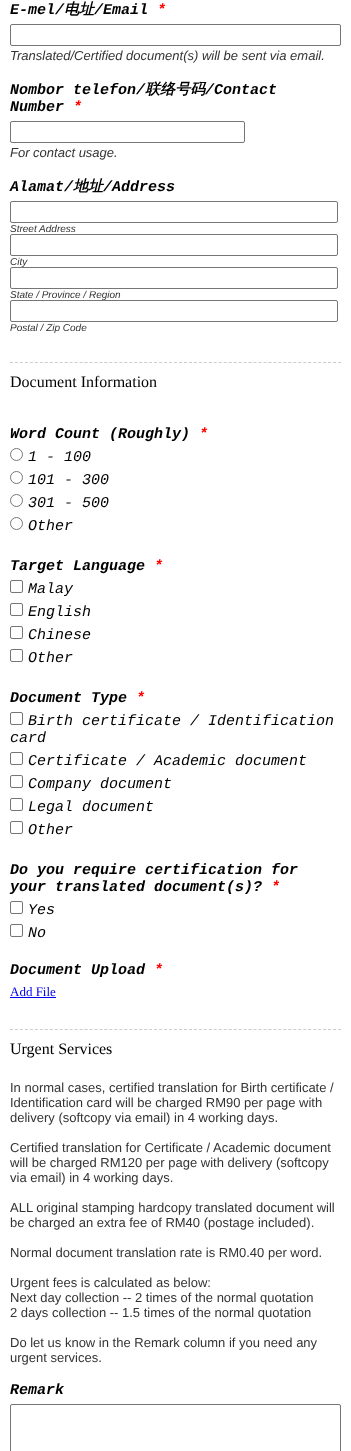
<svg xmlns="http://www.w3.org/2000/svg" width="351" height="1451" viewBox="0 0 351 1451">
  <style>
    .t1 { font: italic bold 15px Liberation Mono; fill: #000; }
    .t2 { font: italic bold 15px WenQuanYi Zen Hei; fill: #000; }
    .t3 { font: italic bold 15px Liberation Mono; fill: #f00; }
    .t4 { font: italic 13px Liberation Sans; fill: #333; }
    .t5 { font: italic 10px Liberation Sans; fill: #333; }
    .t6 { font: 16px Liberation Serif; fill: #000; }
    .t7 { font: italic 15px Liberation Mono; fill: #000; }
    .t8 { font: 13px Liberation Serif; fill: #00e; }
    .t9 { font: 13px Liberation Sans; fill: #333; }
  </style>
  <rect width="100%" height="100%" fill="#fff"/>
  <text x="10" y="14" class="t1">E-mel/</text>
  <text x="64" y="14" class="t2">电址</text>
  <text x="94" y="14" class="t1">/Email</text>
  <text x="157" y="14" class="t3">*</text>
  <rect x="10.5" y="24.5" width="330" height="21" rx="1.5" fill="none" stroke="#767676"/>
  <text x="10" y="60" class="t4">Translated/Certified document(s) will be sent via email.</text>
  <text x="10" y="94" class="t1">Nombor telefon/</text>
  <text x="145" y="94" class="t2">联络号码</text>
  <text x="205" y="94" class="t1">/Contact</text>
  <text x="10" y="111" class="t1">Number</text>
  <text x="73" y="111" class="t3">*</text>
  <rect x="10.5" y="121.5" width="234" height="21" rx="1.5" fill="none" stroke="#767676"/>
  <text x="10" y="157" class="t4">For contact usage.</text>
  <text x="10" y="191" class="t1">Alamat/</text>
  <text x="73" y="191" class="t2">地址</text>
  <text x="103" y="191" class="t1">/Address</text>
  <rect x="10.5" y="201.5" width="327" height="21" rx="1.5" fill="none" stroke="#767676"/>
  <text x="10" y="232" class="t5">Street Address</text>
  <rect x="10.5" y="234.5" width="327" height="21" rx="1.5" fill="none" stroke="#767676"/>
  <text x="10" y="265" class="t5">City</text>
  <rect x="10.5" y="267.5" width="327" height="21" rx="1.5" fill="#fff" stroke="#767676"/>
  <text x="10" y="298" class="t5">State / Province / Region</text>
  <rect x="10.5" y="300.5" width="327" height="21" rx="1.5" fill="#fff" stroke="#767676"/>
  <text x="10" y="331" class="t5">Postal / Zip Code</text>
  <path d="M10 362.5H341" fill="none" stroke="#ccc" stroke-dasharray="3 1.97"/>
  <text x="10" y="387" class="t6">Document Information</text>
  <text x="10" y="438" class="t1">Word Count (Roughly)</text>
  <text x="199" y="438" class="t3">*</text>
  <circle cx="16.5" cy="454.5" r="6" fill="none" stroke="#767676"/>
  <text x="28" y="461" class="t7">1 - 100</text>
  <circle cx="16.5" cy="477.5" r="6" fill="none" stroke="#767676"/>
  <text x="28" y="484" class="t7">101 - 300</text>
  <circle cx="16.5" cy="500.5" r="6" fill="none" stroke="#767676"/>
  <text x="28" y="507" class="t7">301 - 500</text>
  <circle cx="16.5" cy="523.5" r="6" fill="none" stroke="#767676"/>
  <text x="28" y="530" class="t7">Other</text>
  <text x="10" y="570" class="t1">Target Language</text>
  <text x="154" y="570" class="t3">*</text>
  <rect x="10.5" y="580.5" width="12" height="12" rx="1.5" fill="none" stroke="#767676"/>
  <text x="28" y="593" class="t7">Malay</text>
  <rect x="10.5" y="603.5" width="12" height="12" rx="1.5" fill="none" stroke="#767676"/>
  <text x="28" y="616" class="t7">English</text>
  <rect x="10.5" y="626.5" width="12" height="12" rx="1.5" fill="none" stroke="#767676"/>
  <text x="28" y="639" class="t7">Chinese</text>
  <rect x="10.5" y="649.5" width="12" height="12" rx="1.5" fill="none" stroke="#767676"/>
  <text x="28" y="662" class="t7">Other</text>
  <text x="10" y="702" class="t1">Document Type</text>
  <text x="136" y="702" class="t3">*</text>
  <rect x="10.5" y="712.5" width="12" height="12" rx="1.5" fill="none" stroke="#767676"/>
  <text x="28" y="725" class="t7">Birth certificate / Identification</text>
  <text x="10" y="742" class="t7">card</text>
  <rect x="10.5" y="752.5" width="12" height="12" rx="1.5" fill="none" stroke="#767676"/>
  <text x="28" y="765" class="t7">Certificate / Academic document</text>
  <rect x="10.5" y="775.5" width="12" height="12" rx="1.5" fill="none" stroke="#767676"/>
  <text x="28" y="788" class="t7">Company document</text>
  <rect x="10.5" y="798.5" width="12" height="12" rx="1.5" fill="none" stroke="#767676"/>
  <text x="28" y="811" class="t7">Legal document</text>
  <rect x="10.5" y="821.5" width="12" height="12" rx="1.5" fill="none" stroke="#767676"/>
  <text x="28" y="834" class="t7">Other</text>
  <text x="10" y="874" class="t1">Do you require certification for</text>
  <text x="10" y="891" class="t1">your translated document(s)?</text>
  <text x="271" y="891" class="t3">*</text>
  <rect x="10.5" y="901.5" width="12" height="12" rx="1.5" fill="none" stroke="#767676"/>
  <text x="28" y="914" class="t7">Yes</text>
  <rect x="10.5" y="924.5" width="12" height="12" rx="1.5" fill="none" stroke="#767676"/>
  <text x="28" y="937" class="t7">No</text>
  <text x="10" y="974" class="t1">Document Upload</text>
  <text x="154" y="974" class="t3">*</text>
  <text x="10" y="996" class="t8">Add File</text>
  <rect x="10" y="997" width="46" height="1" fill="#00e"/>
  <path d="M10 1029.5H341" fill="none" stroke="#ccc" stroke-dasharray="3 1.97"/>
  <text x="10" y="1054" class="t6">Urgent Services</text>
  <text x="10" y="1092" class="t9">In normal cases, certified translation for Birth certificate /</text>
  <text x="10" y="1107" class="t9">Identification card will be charged RM90 per page with</text>
  <text x="10" y="1122" class="t9">delivery (softcopy via email) in 4 working days.</text>
  <text x="10" y="1152" class="t9">Certified translation for Certificate / Academic document</text>
  <text x="10" y="1167" class="t9">will be charged RM120 per page with delivery (softcopy</text>
  <text x="10" y="1182" class="t9">via email) in 4 working days.</text>
  <text x="10" y="1212" class="t9">ALL original stamping hardcopy translated document will</text>
  <text x="10" y="1227" class="t9">be charged an extra fee of RM40 (postage included).</text>
  <text x="10" y="1257" class="t9">Normal document translation rate is RM0.40 per word.</text>
  <text x="10" y="1287" class="t9">Urgent fees is calculated as below:</text>
  <text x="10" y="1302" class="t9">Next day collection -- 2 times of the normal quotation</text>
  <text x="10" y="1317" class="t9">2 days collection -- 1.5 times of the normal quotation</text>
  <text x="10" y="1347" class="t9">Do let us know in the Remark column if you need any</text>
  <text x="10" y="1362" class="t9">urgent services.</text>
  <text x="10" y="1394" class="t1">Remark</text>
  <rect x="10.5" y="1404.5" width="330" height="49" rx="1.5" fill="none" stroke="#767676"/>
</svg>
